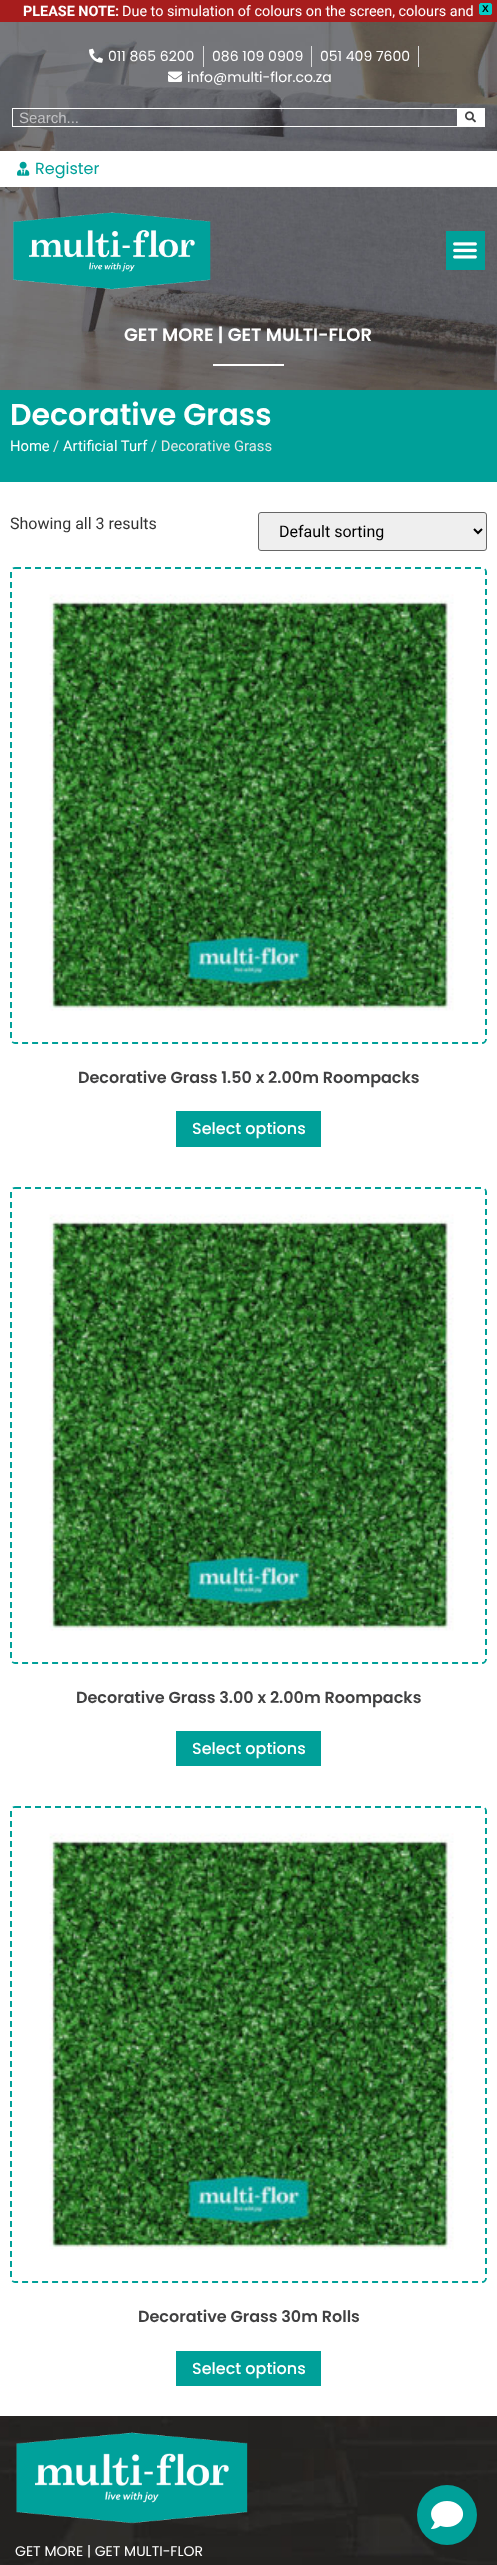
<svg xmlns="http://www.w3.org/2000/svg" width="497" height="2565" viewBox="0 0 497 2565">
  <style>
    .t1 { font: bold 14.4px Roboto; fill: #fff; }
    .t2 { font: 14.4px Roboto; fill: #fff; }
    .t3 { font: bold 10px Liberation Sans; fill: #000; }
    .t4 { font: 14px Poppins; fill: #fff; }
    .t5 { font: 15px Liberation Sans; fill: #c3c3c5; }
    .t6 { font: 16px Poppins; fill: #00a099; }
    .t7 { font: 600 18px Poppins; fill: #fff; }
    .t8 { font: 600 30px Poppins; fill: #fff; }
    .t9 { font: 14.75px Roboto; fill: #fff; }
    .t10 { font: 14.75px Roboto; fill: #e6e7e8; }
    .t11 { font: 16px Roboto; fill: #333; }
    .t12 { font: 16px Roboto; fill: #000; }
    .t13 { font: 600 16px Poppins; fill: #404041; }
    .t14 { font: 500 16px Poppins; fill: #fff; }
  </style>
  <rect width="100%" height="100%" fill="#fff"/>
  <rect x="0" y="0" width="497" height="22" fill="#a71d1d"/>
  <text x="23" y="16" class="t1">PLEASE NOTE:</text>
  <text x="122" y="16" class="t2">Due to simulation of colours on the screen, colours and</text>
  <rect x="479.5" y="3.5" width="12" height="11" rx="1.5" fill="#05cdc7" stroke="#05cdc7"/>
  <text x="482" y="12" class="t3">X</text>
  <image x="0" y="22" width="497" height="368" href="images/1.png"/>
  <image x="89" y="48" width="14" height="15" href="images/2.png"/>
  <text x="108" y="61" class="t4">011 865 6200</text>
  <rect x="203" y="46" width="1" height="21" fill="#ddd"/>
  <text x="212" y="61" class="t4">086 109 0909</text>
  <rect x="311" y="46" width="1" height="21" fill="#ddd"/>
  <text x="320" y="61" class="t4">051 409 7600</text>
  <rect x="418" y="46" width="1" height="21" fill="#ddd"/>
  <image x="168" y="71" width="14" height="11" href="images/3.png"/>
  <text x="187" y="82" class="t4">info@multi-flor.co.za</text>
  <rect x="12.5" y="108.5" width="472" height="18" fill="none" stroke="#fff"/>
  <text x="19" y="123" class="t5">Search...</text>
  <rect x="457" y="109" width="27" height="17" fill="#fff"/>
  <image x="465" y="111" width="11" height="12" href="images/4.png"/>
  <rect x="0" y="151" width="497" height="36" fill="#fff"/>
  <image x="17" y="161" width="13" height="15" href="images/5.png"/>
  <text x="35" y="174" class="t6">Register</text>
  <image x="13" y="212" width="198" height="78" href="images/6.png"/>
  <rect x="446" y="231" width="39" height="39" fill="#00a099"/>
  <image x="453" y="242" width="24" height="17" href="images/7.png"/>
  <text x="124" y="341" class="t7">GET MORE | GET MULTI-FLOR</text>
  <rect x="213" y="364" width="71" height="2" fill="#fff"/>
  <rect x="0" y="390" width="497" height="92" fill="#00a099"/>
  <text x="10" y="425" class="t8">Decorative Grass</text>
  <text x="10" y="451" class="t9">Home</text>
  <text x="53" y="451" class="t10">/</text>
  <text x="63" y="451" class="t9">Artificial Turf</text>
  <text x="151" y="451" class="t10">/ Decorative Grass</text>
  <text x="10" y="529" class="t11">Showing all 3 results</text>
  <rect x="258.5" y="512.5" width="228" height="38" rx="2.5" fill="#efefef" stroke="#666"/>
  <path d="M474 529L478 533L482 529" fill="none" stroke="#000" stroke-width="2"/>
  <text x="279" y="537" class="t12">Default sorting</text>
  <path d="M15 568H482C484 568 486 570 486 572V1039C486 1041 484 1043 482 1043H15C13 1043 11 1041 11 1039V572C11 570 13 568 15 568Z" fill="none" stroke="#00a099" stroke-width="2" stroke-dasharray="6 4"/>
  <image x="13" y="569" width="472" height="473" href="images/8.png"/>
  <text x="78" y="1083" class="t13">Decorative Grass 1.50 x 2.00m Roompacks</text>
  <rect x="176" y="1111" width="145" height="36" fill="#00a099"/>
  <text x="192" y="1134" class="t14">Select options</text>
  <path d="M15 1188H482C484 1188 486 1190 486 1192V1659C486 1661 484 1663 482 1663H15C13 1663 11 1661 11 1659V1192C11 1190 13 1188 15 1188Z" fill="none" stroke="#00a099" stroke-width="2" stroke-dasharray="6 4"/>
  <image x="13" y="1189" width="472" height="473" href="images/8.png"/>
  <text x="76" y="1703" class="t13">Decorative Grass 3.00 x 2.00m Roompacks</text>
  <rect x="176" y="1731" width="145" height="35" fill="#00a099"/>
  <text x="192" y="1754" class="t14">Select options</text>
  <path d="M15 1807H482C484 1807 486 1809 486 1811V2278C486 2280 484 2282 482 2282H15C13 2282 11 2280 11 2278V1811C11 1809 13 1807 15 1807Z" fill="none" stroke="#00a099" stroke-width="2" stroke-dasharray="6 4"/>
  <image x="13" y="1808" width="472" height="473" href="images/9.png"/>
  <text x="138" y="2322" class="t13">Decorative Grass 30m Rolls</text>
  <rect x="176" y="2351" width="145" height="35" fill="#00a099"/>
  <text x="192" y="2374" class="t14">Select options</text>
  <image x="0" y="2416" width="497" height="149" href="images/11.png"/>
  <circle cx="447" cy="2515" r="30" fill="#00a099"/>
  <image x="431" y="2501" width="33" height="28" href="images/10.png"/>
  <image x="16" y="2432" width="232" height="92" href="images/12.png"/>
  <text x="15" y="2556" class="t4">GET MORE | GET MULTI-FLOR</text>
</svg>
